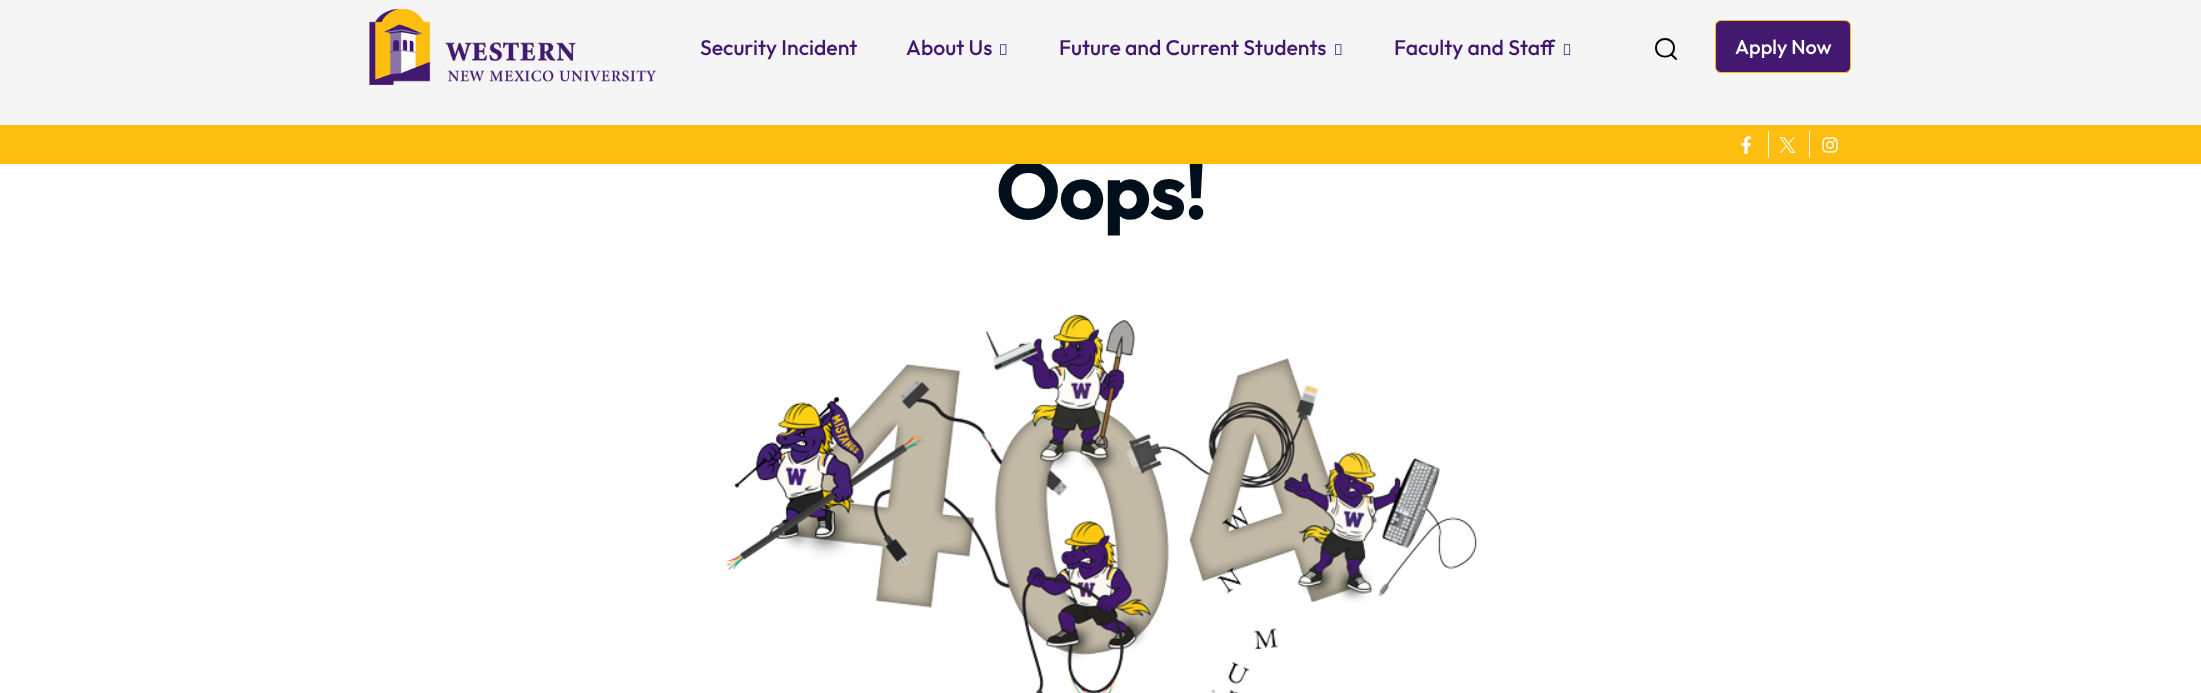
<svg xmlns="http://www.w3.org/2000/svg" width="2201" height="693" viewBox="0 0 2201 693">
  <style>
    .t1 { font: 500 21.25px Outfit; fill: #42196f; }
    .t2 { font: 500 20px Outfit; fill: #fff; }
    .t3 { font: bold 80px Outfit; letter-spacing: -1.5px; fill: #010f1c; }
  </style>
  <rect width="100%" height="100%" fill="#fff"/>
  <rect x="0" y="0" width="2201" height="125" fill="#f5f5f5f7"/>
  <image x="369" y="8" width="287" height="77" href="images/1.png"/>
  <text x="700" y="55" class="t1">Security Incident</text>
  <text x="906" y="55" class="t1">About Us</text>
  <image x="1000" y="44" width="7" height="11" href="images/2.png"/>
  <text x="1059" y="55" class="t1">Future and Current Students</text>
  <image x="1335" y="44" width="7" height="11" href="images/2.png"/>
  <text x="1394" y="55" class="t1">Faculty and Staff</text>
  <image x="1563" y="44" width="8" height="11" href="images/3.png"/>
  <path d="M1671.5 54.5L1676 59" fill="none" stroke="#000" stroke-width="1.9" stroke-linecap="round" stroke-linejoin="round"/>
  <path d="M1674 48C1674 36 1656 36 1656 48C1656 59.5 1674 59.5 1674 48Z" fill="none" stroke="#000" stroke-width="1.9" stroke-linejoin="round"/>
  <rect x="1715.5" y="20.5" width="135" height="52" rx="5.5" fill="#42196f" stroke="#febe11"/>
  <text x="1735" y="54" class="t2">Apply Now</text>
  <text x="996" y="219" class="t3">Oops!</text>
  <rect x="0" y="125" width="2201" height="39" fill="#febe10"/>
  <image x="1741" y="136" width="10" height="18" href="images/4.png"/>
  <rect x="1768" y="131" width="1" height="27" fill="#fff"/>
  <image x="1779" y="137" width="17" height="16" href="images/5.png"/>
  <rect x="1809" y="131" width="1" height="27" fill="#fff"/>
  <image x="1822" y="137" width="16" height="16" href="images/6.png"/>
  <image x="726" y="314" width="751" height="379" href="images/7.png"/>
</svg>
